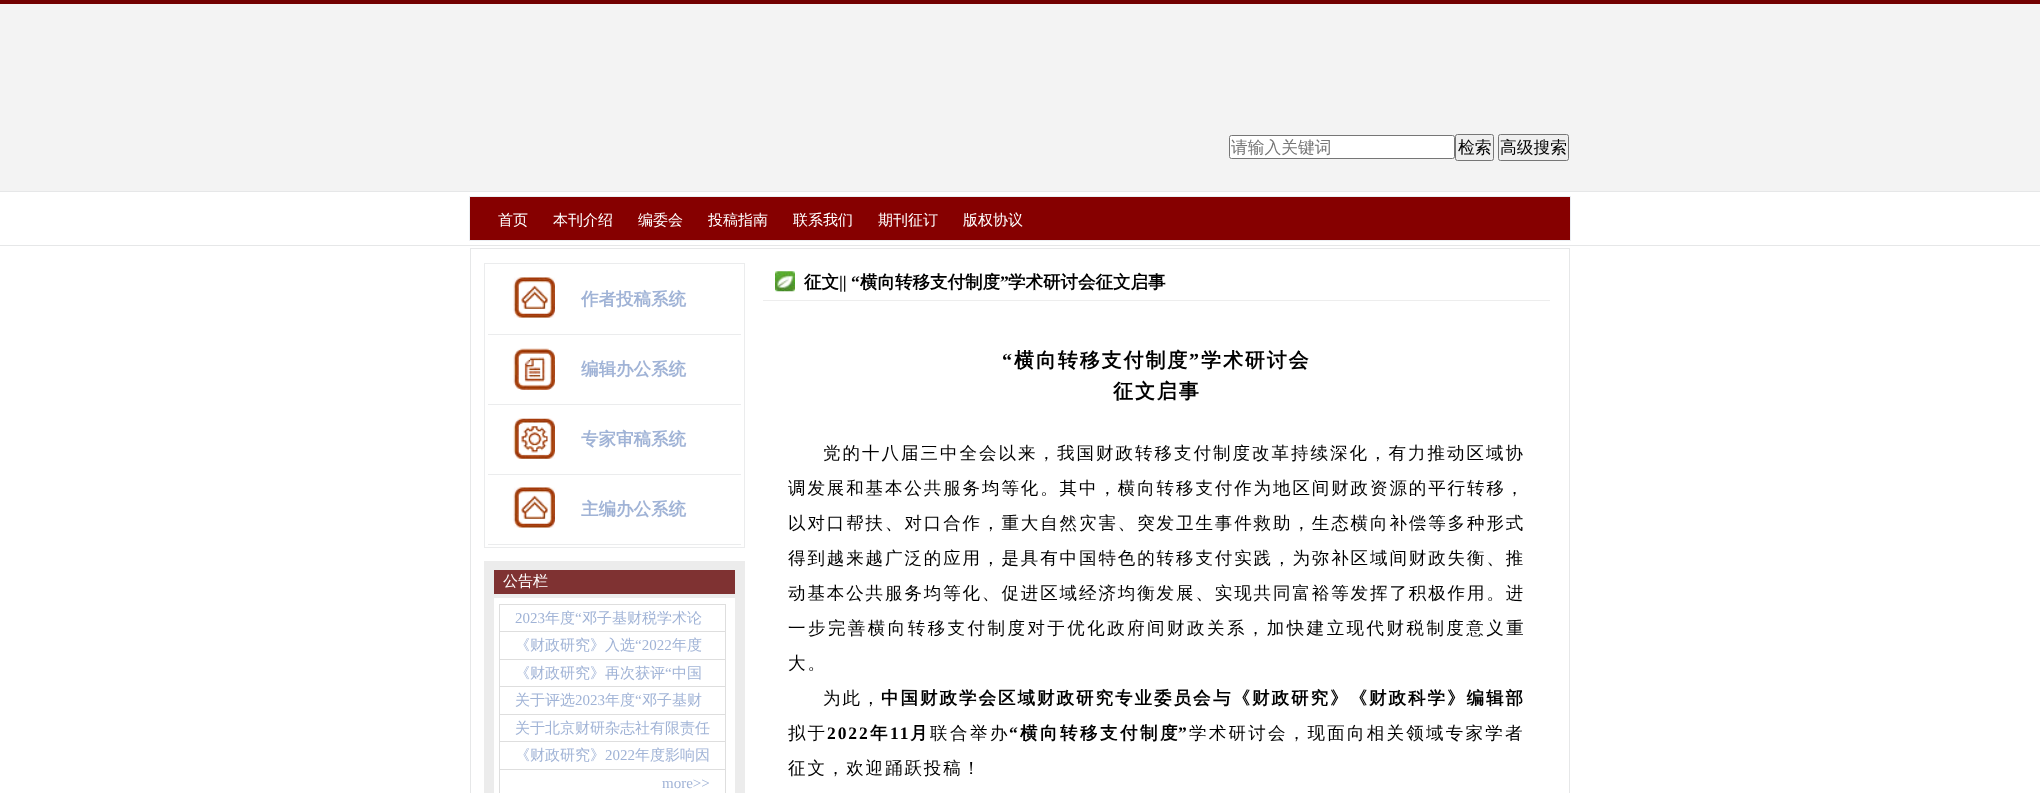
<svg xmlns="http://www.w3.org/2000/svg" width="2040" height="793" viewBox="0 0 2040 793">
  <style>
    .t1 { font: 500 16.75px WenQuanYi Zen Hei; fill: #757575; }
    .t2 { font: 500 16.75px WenQuanYi Zen Hei; fill: #000; }
    .t3 { font: bold 17.5px WenQuanYi Zen Hei; fill: #a0b3d6; }
    .t4 { font: 500 15px WenQuanYi Zen Hei; fill: #fff; }
    .t5 { font: 15px Liberation Serif; fill: #a0b3d6; }
    .t6 { font: 500 15px WenQuanYi Zen Hei; fill: #a0b3d6; }
    .t7 { font: bold 17.5px WenQuanYi Zen Hei; fill: #000; }
    .t8 { font: bold 17.5px Liberation Serif; fill: #000; }
    .t9 { font: bold 20px Liberation Serif; letter-spacing: 1.9px; fill: #000; }
    .t10 { font: bold 20px WenQuanYi Zen Hei; letter-spacing: 1.9px; fill: #000; }
    .t11 { font: 500 17.5px WenQuanYi Zen Hei; letter-spacing: 2px; fill: #000; }
    .t12 { font: 500 17.5px WenQuanYi Zen Hei; letter-spacing: 1.9px; fill: #000; }
    .t13 { font: 500 17.5px WenQuanYi Zen Hei; letter-spacing: 2.45px; fill: #000; }
    .t14 { font: bold 17.5px WenQuanYi Zen Hei; letter-spacing: 2px; fill: #000; }
    .t15 { font: bold 17.5px Liberation Serif; letter-spacing: 1.9px; fill: #000; }
    .t16 { font: bold 17.5px WenQuanYi Zen Hei; letter-spacing: 1.9px; fill: #000; }
    .t17 { font: 500 17.5px WenQuanYi Zen Hei; letter-spacing: 2.5px; fill: #000; }
    .t18 { font: bold 17.5px WenQuanYi Zen Hei; letter-spacing: 2.5px; fill: #000; }
    .t19 { font: 500 17.5px WenQuanYi Zen Hei; letter-spacing: 2.25px; fill: #000; }
  </style>
  <rect width="100%" height="100%" fill="#fff"/>
  <rect x="0" y="4" width="2040" height="187" fill="#f3f3f3"/>
  <rect x="0" y="0" width="2040" height="4" fill="#720000"/>
  <rect x="470.5" y="248.5" width="1099" height="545" fill="none" stroke="#e6e7e8"/>
  <rect x="1229.5" y="135.5" width="225" height="23" rx="2" fill="#fff" stroke="#767676"/>
  <text x="1231" y="153" class="t1">请输入关键词</text>
  <rect x="1455.5" y="134.5" width="38" height="26" rx="2" fill="#efefef" stroke="#767676"/>
  <text x="1458" y="153" class="t2">检索</text>
  <rect x="1498.5" y="134.5" width="70" height="26" rx="2" fill="#efefef" stroke="#767676"/>
  <text x="1500" y="153" class="t2">高级搜索</text>
  <rect x="484.5" y="263.5" width="260" height="284" fill="none" stroke="#ebeced"/>
  <image x="513" y="277" width="42" height="41" href="images/1.png"/>
  <rect x="488" y="334" width="253" height="1" fill="#ebeced"/>
  <text x="581" y="305" class="t3">作者投稿系统</text>
  <image x="513" y="348" width="42" height="42" href="images/2.png"/>
  <rect x="488" y="404" width="253" height="1" fill="#ebeced"/>
  <text x="581" y="375" class="t3">编辑办公系统</text>
  <image x="513" y="418" width="42" height="41" href="images/3.png"/>
  <rect x="488" y="474" width="253" height="1" fill="#ebeced"/>
  <text x="581" y="445" class="t3">专家审稿系统</text>
  <image x="513" y="487" width="42" height="41" href="images/4.png"/>
  <rect x="488" y="544" width="253" height="1" fill="#ebeced"/>
  <text x="581" y="515" class="t3">主编办公系统</text>
  <rect x="484" y="561" width="261" height="232" fill="#ececec"/>
  <rect x="494" y="570" width="241" height="24" fill="#7f3232"/>
  <text x="503" y="586" class="t4">公告栏</text>
  <rect x="494" y="598" width="241" height="195" fill="#fff"/>
  <rect x="499" y="604" width="227" height="1" fill="#dedede"/>
  <rect x="725" y="604" width="1" height="189" fill="#dedede"/>
  <rect x="499" y="604" width="1" height="189" fill="#dedede"/>
  <rect x="500" y="631" width="225" height="1" fill="#dedede"/>
  <text x="515" y="623" class="t5">2023</text>
  <text x="545" y="623" class="t6">年度</text>
  <text x="575" y="623" class="t5">“</text>
  <text x="582" y="623" class="t6">邓子基财税学术论</text>
  <rect x="500" y="659" width="225" height="1" fill="#dedede"/>
  <text x="515" y="650" class="t6">《财政研究》入选</text>
  <text x="635" y="650" class="t5">“2022</text>
  <text x="672" y="650" class="t6">年度</text>
  <rect x="500" y="686" width="225" height="1" fill="#dedede"/>
  <text x="515" y="678" class="t6">《财政研究》再次获评</text>
  <text x="665" y="678" class="t5">“</text>
  <text x="672" y="678" class="t6">中国</text>
  <rect x="500" y="714" width="225" height="1" fill="#dedede"/>
  <text x="515" y="705" class="t6">关于评选</text>
  <text x="575" y="705" class="t5">2023</text>
  <text x="605" y="705" class="t6">年度</text>
  <text x="635" y="705" class="t5">“</text>
  <text x="642" y="705" class="t6">邓子基财</text>
  <rect x="500" y="741" width="225" height="1" fill="#dedede"/>
  <text x="515" y="733" class="t6">关于北京财研杂志社有限责任</text>
  <rect x="500" y="769" width="225" height="1" fill="#dedede"/>
  <text x="515" y="760" class="t6">《财政研究》</text>
  <text x="605" y="760" class="t5">2022</text>
  <text x="635" y="760" class="t6">年度影响因</text>
  <text x="662" y="788" class="t5">more&gt;&gt;</text>
  <rect x="763" y="300" width="787" height="1" fill="#ededed"/>
  <image x="775" y="271" width="20" height="21" href="images/5.png"/>
  <text x="804" y="288" class="t7">征文</text>
  <text x="839" y="288" class="t8">|| “</text>
  <text x="860" y="288" class="t7">横向转移支付制度</text>
  <text x="1000" y="288" class="t8">”</text>
  <text x="1008" y="288" class="t7">学术研讨会征文启事</text>
  <text x="1002" y="367" class="t9">“</text>
  <text x="1014" y="367" class="t10">横向转移支付制度</text>
  <text x="1189" y="367" class="t9">”</text>
  <text x="1201" y="367" class="t10">学术研讨会</text>
  <text x="1113" y="398" class="t10">征文启事</text>
  <text x="823" y="459" class="t11">党的十八届三中全会以来，我国财政转移支付制度改革持续深化，有力推动区域协</text>
  <text x="788" y="494" class="t12">调发展和基本公共服务均等化。其中，横向转移支付作为地区间财政资源的平行转移，</text>
  <text x="788" y="529" class="t12">以对口帮扶、对口合作，重大自然灾害、突发卫生事件救助，生态横向补偿等多种形式</text>
  <text x="788" y="564" class="t12">得到越来越广泛的应用，是具有中国特色的转移支付实践，为弥补区域间财政失衡、推</text>
  <text x="788" y="599" class="t12">动基本公共服务均等化、促进区域经济均衡发展、实现共同富裕等发挥了积极作用。进</text>
  <text x="788" y="634" class="t13">一步完善横向转移支付制度对于优化政府间财政关系，加快建立现代财税制度意义重</text>
  <text x="788" y="669" class="t12">大。</text>
  <text x="823" y="704" class="t11">为此，</text>
  <text x="881" y="704" class="t14">中国财政学会区域财政研究专业委员会</text>
  <text x="1213" y="704" class="t14">与《财政研究》《财政科学》编辑部</text>
  <text x="788" y="739" class="t12">拟于</text>
  <text x="827" y="739" class="t15">2022</text>
  <text x="870" y="739" class="t16">年</text>
  <text x="890" y="739" class="t15">11</text>
  <text x="910" y="739" class="t16">月</text>
  <text x="930" y="739" class="t17">联合举办</text>
  <text x="1009" y="739" class="t15">“</text>
  <text x="1020" y="739" class="t18">横向转移支付制度</text>
  <text x="1178" y="739" class="t15">”</text>
  <text x="1189" y="739" class="t19">学术研讨会，现面向相关领域专家学者</text>
  <text x="788" y="774" class="t12">征文，欢迎踊跃投稿！</text>
  <rect x="0" y="191" width="2040" height="1" fill="#e6e7e8"/>
  <rect x="0" y="245" width="2040" height="1" fill="#e6e7e8"/>
  <rect x="469.5" y="196.5" width="1101" height="44" fill="#860000" stroke="#ebeef2"/>
  <text x="498" y="225" class="t4">首页</text>
  <text x="553" y="225" class="t4">本刊介绍</text>
  <text x="638" y="225" class="t4">编委会</text>
  <text x="708" y="225" class="t4">投稿指南</text>
  <text x="793" y="225" class="t4">联系我们</text>
  <text x="878" y="225" class="t4">期刊征订</text>
  <text x="963" y="225" class="t4">版权协议</text>
</svg>
